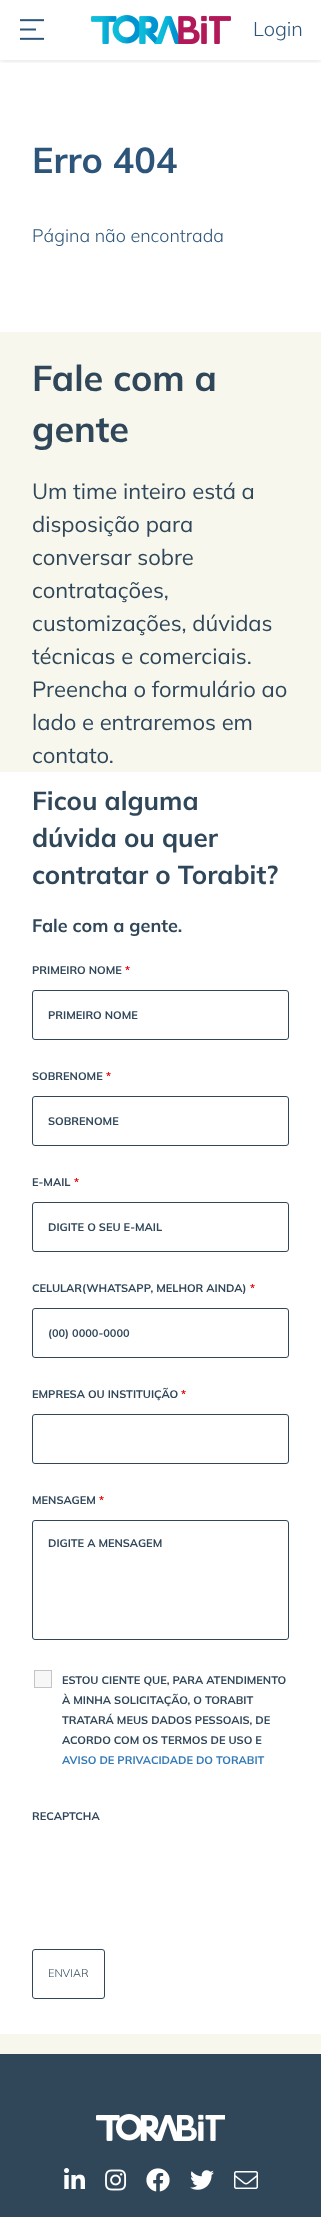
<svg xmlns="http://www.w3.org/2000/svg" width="321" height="2217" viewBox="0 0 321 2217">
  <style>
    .t1 { font: 300 20px Mulish; fill: #2d5579; }
    .t2 { font: bold 36px Mulish; fill: #2d5579; }
    .t3 { font: 300 18px Mulish; fill: #2d5579; }
    .t4 { font: bold 36px Mulish; fill: #304659; }
    .t5 { font: 22px Mulish; fill: #304659; }
    .t6 { font: bold 26px Mulish; fill: #304659; }
    .t7 { font: bold 18px Mulish; fill: #304659; }
    .t8 { font: bold 11px Mulish; fill: #304659; }
    .t9 { font: bold 11px Mulish; fill: #e80000; }
    .t10 { font: bold 11px Mulish; fill: #337ab7; }
    .t11 { font: 300 11px Mulish; fill: #304659; }
  </style>
  <defs>
    <clipPath id="clip1"><rect x="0" y="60" width="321" height="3"/></clipPath>
  </defs>
  <rect width="100%" height="100%" fill="#fff"/>
  <g clip-path="url(#clip1)">
    <rect x="0" y="0" width="321" height="60" fill="#00000026" filter="blur(3px)"/>
  </g>
  <image x="20" y="19" width="24" height="21" href="images/1.png"/>
  <image x="91" y="15" width="140" height="29" href="images/2.png"/>
  <text x="253" y="36" class="t1">Login</text>
  <text x="32" y="173" class="t2">Erro 404</text>
  <text x="32" y="242" class="t3">Página não encontrada</text>
  <rect x="0" y="332" width="321" height="1722" fill="#f7f7ed"/>
  <text x="32" y="391" class="t4">Fale com a</text>
  <text x="32" y="442" class="t4">gente</text>
  <text x="32" y="499" class="t5">Um time inteiro está a</text>
  <text x="32" y="532" class="t5">disposição para</text>
  <text x="32" y="565" class="t5">conversar sobre</text>
  <text x="32" y="598" class="t5">contratações,</text>
  <text x="32" y="631" class="t5">customizações, dúvidas</text>
  <text x="32" y="664" class="t5">técnicas e comerciais.</text>
  <text x="32" y="697" class="t5">Preencha o formulário ao</text>
  <text x="32" y="730" class="t5">lado e entraremos em</text>
  <text x="32" y="763" class="t5">contato.</text>
  <rect x="0" y="772" width="321" height="1262" fill="#fff"/>
  <text x="32" y="810" class="t6">Ficou alguma</text>
  <text x="32" y="847" class="t6">dúvida ou quer</text>
  <text x="32" y="884" class="t6">contratar o Torabit?</text>
  <text x="32" y="932" class="t7">Fale com a gente.</text>
  <text x="32" y="974" class="t8">PRIMEIRO NOME</text>
  <text x="125" y="974" class="t9">*</text>
  <rect x="32.5" y="990.5" width="256" height="49" rx="2.5" fill="none" stroke="#304659"/>
  <text x="48" y="1019" class="t8">PRIMEIRO NOME</text>
  <text x="32" y="1080" class="t8">SOBRENOME</text>
  <text x="106" y="1080" class="t9">*</text>
  <rect x="32.5" y="1096.5" width="256" height="49" rx="2.5" fill="none" stroke="#304659"/>
  <text x="48" y="1125" class="t8">SOBRENOME</text>
  <text x="32" y="1186" class="t8">E-MAIL</text>
  <text x="74" y="1186" class="t9">*</text>
  <rect x="32.5" y="1202.5" width="256" height="49" rx="2.5" fill="none" stroke="#304659"/>
  <text x="48" y="1231" class="t8">DIGITE O SEU E-MAIL</text>
  <text x="32" y="1292" class="t8">CELULAR(WHATSAPP, MELHOR AINDA)</text>
  <text x="250" y="1292" class="t9">*</text>
  <rect x="32.5" y="1308.5" width="256" height="49" rx="2.5" fill="none" stroke="#304659"/>
  <text x="48" y="1337" class="t8">(00) 0000-0000</text>
  <text x="32" y="1398" class="t8">EMPRESA OU INSTITUIÇÃO</text>
  <text x="181" y="1398" class="t9">*</text>
  <rect x="32.5" y="1414.5" width="256" height="49" rx="2.5" fill="none" stroke="#304659"/>
  <text x="32" y="1504" class="t8">MENSAGEM</text>
  <text x="99" y="1504" class="t9">*</text>
  <rect x="32.5" y="1520.5" width="256" height="119" rx="2.5" fill="none" stroke="#304659"/>
  <text x="48" y="1547" class="t8">DIGITE A MENSAGEM</text>
  <rect x="34.5" y="1670.5" width="17" height="17" fill="#f7f7f7" stroke="#c4c4c4"/>
  <text x="62" y="1684" class="t8">ESTOU CIENTE QUE, PARA ATENDIMENTO</text>
  <text x="62" y="1704" class="t8">À MINHA SOLICITAÇÃO, O TORABIT</text>
  <text x="62" y="1724" class="t8">TRATARÁ MEUS DADOS PESSOAIS, DE</text>
  <text x="62" y="1744" class="t8">ACORDO COM OS TERMOS DE USO E</text>
  <text x="62" y="1764" class="t10">AVISO DE PRIVACIDADE DO TORABIT</text>
  <text x="32" y="1820" class="t8">RECAPTCHA</text>
  <rect x="32.5" y="1949.5" width="72" height="49" rx="2.5" fill="none" stroke="#304659"/>
  <text x="48" y="1977" class="t11">ENVIAR</text>
  <rect x="0" y="2054" width="321" height="163" fill="#304659"/>
  <image x="96" y="2114" width="129" height="27" href="images/3.png"/>
  <image x="64" y="2168" width="21" height="21" href="images/4.png"/>
  <image x="105" y="2169" width="22" height="22" href="images/5.png"/>
  <image x="146" y="2168" width="24" height="24" href="images/6.png"/>
  <image x="190" y="2170" width="24" height="20" href="images/7.png"/>
  <image x="234" y="2171" width="24" height="18" href="images/8.png"/>
</svg>
